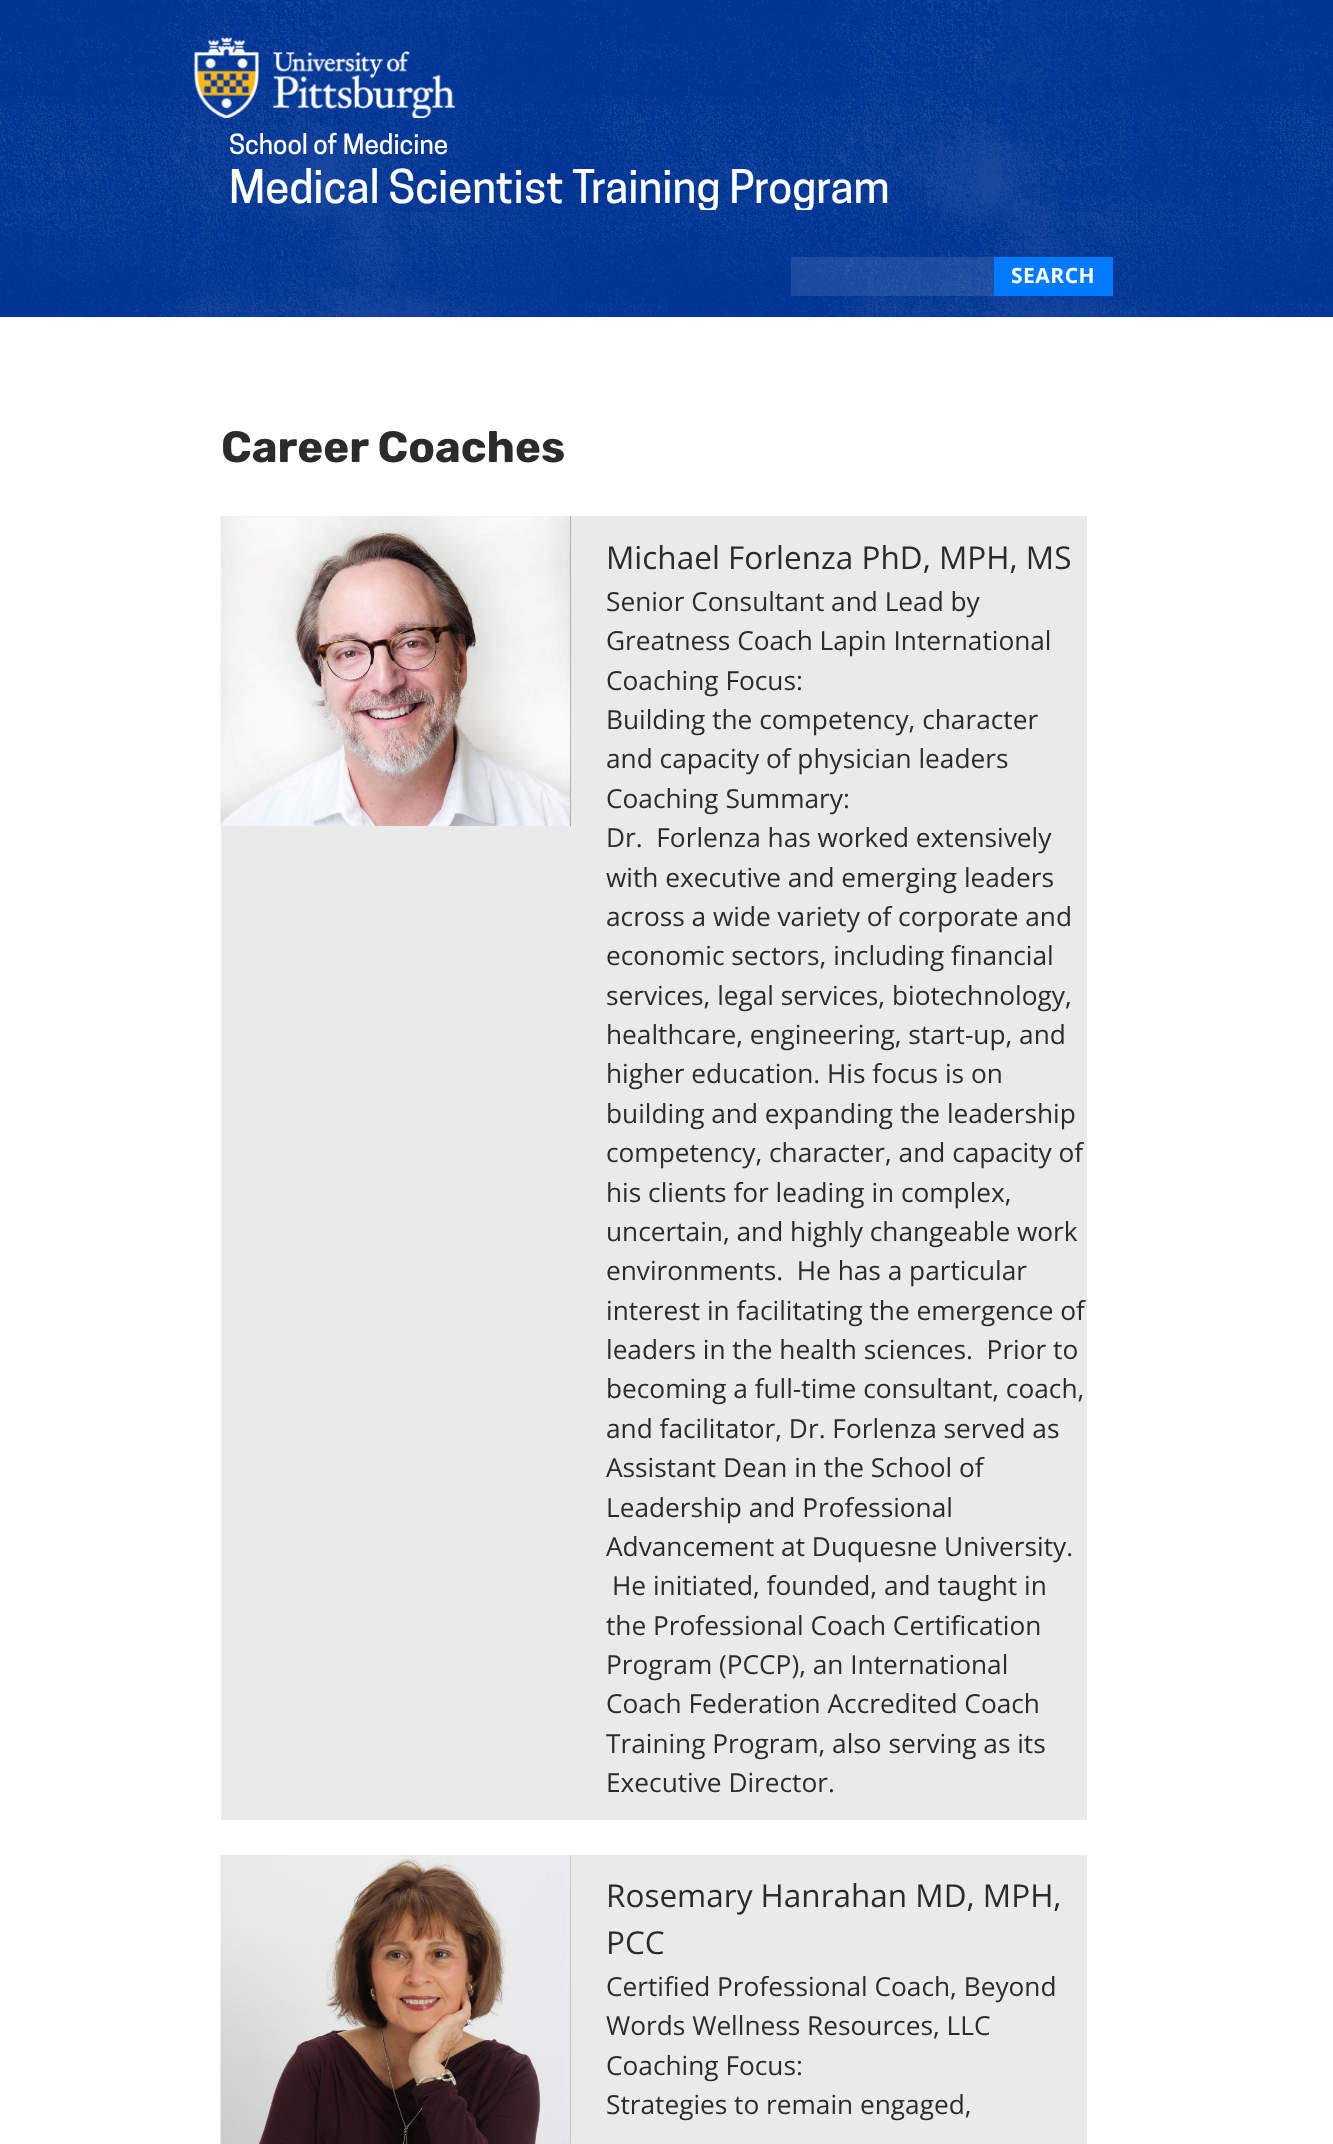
<svg xmlns="http://www.w3.org/2000/svg" width="1333" height="2144" viewBox="0 0 1333 2144">
  <style>
    .t1 { font: 500 26.25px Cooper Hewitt; fill: #fff; }
    .t2 { font: 500 43.75px Cooper Hewitt; fill: #fff; }
    .t3 { font: bold 21px Open Sans; letter-spacing: 0.5px; fill: #fff; }
    .t4 { font: 300 43.75px Rubik; fill: #2b2b2b; }
    .t5 { font: 31.5px Open Sans; fill: #2b2b2b; }
    .t6 { font: 26.25px Open Sans; fill: #2b2b2b; }
  </style>
  <defs>
    <clipPath id="clip1"><rect x="194" y="26" width="945" height="184"/></clipPath>
  </defs>
  <rect width="100%" height="100%" fill="#fff"/>
  <rect x="0" y="0" width="1333" height="317" fill="#003594"/>
  <image x="0" y="0" width="1333" height="317" href="images/1.png"/>
  <image x="194" y="37" width="261" height="81" href="images/2.png"/>
  <text x="229" y="154" class="t1">School of Medicine</text>
  <g clip-path="url(#clip1)">
    <text x="229" y="203" class="t2">Medical Scientist Training Program</text>
  </g>
  <rect x="791" y="257" width="203" height="39" fill="#ffffff1a"/>
  <rect x="994" y="257" width="119" height="39" fill="#007bff"/>
  <text x="1011" y="283" class="t3">SEARCH</text>
  <text x="221" y="462" class="t4">Career Coaches</text>
  <rect x="221" y="516" width="866" height="1304" fill="#eaeaea"/>
  <image x="220" y="516" width="351" height="310" href="images/3.png"/>
  <text x="606" y="569" class="t5">Michael Forlenza PhD, MPH, MS</text>
  <text x="606" y="611" class="t6">Senior Consultant and Lead by</text>
  <text x="606" y="650" class="t6">Greatness Coach Lapin International</text>
  <text x="606" y="690" class="t6">Coaching Focus:</text>
  <text x="606" y="729" class="t6">Building the competency, character</text>
  <text x="606" y="768" class="t6">and capacity of physician leaders</text>
  <text x="606" y="808" class="t6">Coaching Summary:</text>
  <text x="606" y="847" class="t6" xml:space="preserve">Dr.  Forlenza has worked extensively</text>
  <text x="606" y="887" class="t6">with executive and emerging leaders</text>
  <text x="606" y="926" class="t6">across a wide variety of corporate and</text>
  <text x="606" y="965" class="t6">economic sectors, including financial</text>
  <text x="606" y="1005" class="t6">services, legal services, biotechnology,</text>
  <text x="606" y="1044" class="t6">healthcare, engineering, start-up, and</text>
  <text x="606" y="1083" class="t6">higher education. His focus is on</text>
  <text x="606" y="1123" class="t6">building and expanding the leadership</text>
  <text x="606" y="1162" class="t6">competency, character, and capacity of</text>
  <text x="606" y="1202" class="t6">his clients for leading in complex,</text>
  <text x="606" y="1241" class="t6">uncertain, and highly changeable work</text>
  <text x="606" y="1280" class="t6" xml:space="preserve">environments.  He has a particular</text>
  <text x="606" y="1320" class="t6">interest in facilitating the emergence of</text>
  <text x="606" y="1359" class="t6" xml:space="preserve">leaders in the health sciences.  Prior to</text>
  <text x="606" y="1398" class="t6">becoming a full-time consultant, coach,</text>
  <text x="606" y="1438" class="t6">and facilitator, Dr. Forlenza served as</text>
  <text x="606" y="1477" class="t6">Assistant Dean in the School of</text>
  <text x="606" y="1517" class="t6">Leadership and Professional</text>
  <text x="606" y="1556" class="t6">Advancement at Duquesne University.</text>
  <text x="612" y="1595" class="t6">He initiated, founded, and taught in</text>
  <text x="606" y="1635" class="t6">the Professional Coach Certification</text>
  <text x="606" y="1674" class="t6">Program (PCCP), an International</text>
  <text x="606" y="1713" class="t6">Coach Federation Accredited Coach</text>
  <text x="606" y="1753" class="t6">Training Program, also serving as its</text>
  <text x="606" y="1792" class="t6">Executive Director.</text>
  <rect x="570" y="1855" width="517" height="289" fill="#eaeaea"/>
  <image x="220" y="1855" width="351" height="289" href="images/4.png"/>
  <text x="606" y="1907" class="t5">Rosemary Hanrahan MD, MPH,</text>
  <text x="606" y="1954" class="t5">PCC</text>
  <text x="606" y="1996" class="t6">Certified Professional Coach, Beyond</text>
  <text x="606" y="2035" class="t6">Words Wellness Resources, LLC</text>
  <text x="606" y="2075" class="t6">Coaching Focus:</text>
  <text x="606" y="2114" class="t6">Strategies to remain engaged,</text>
</svg>
